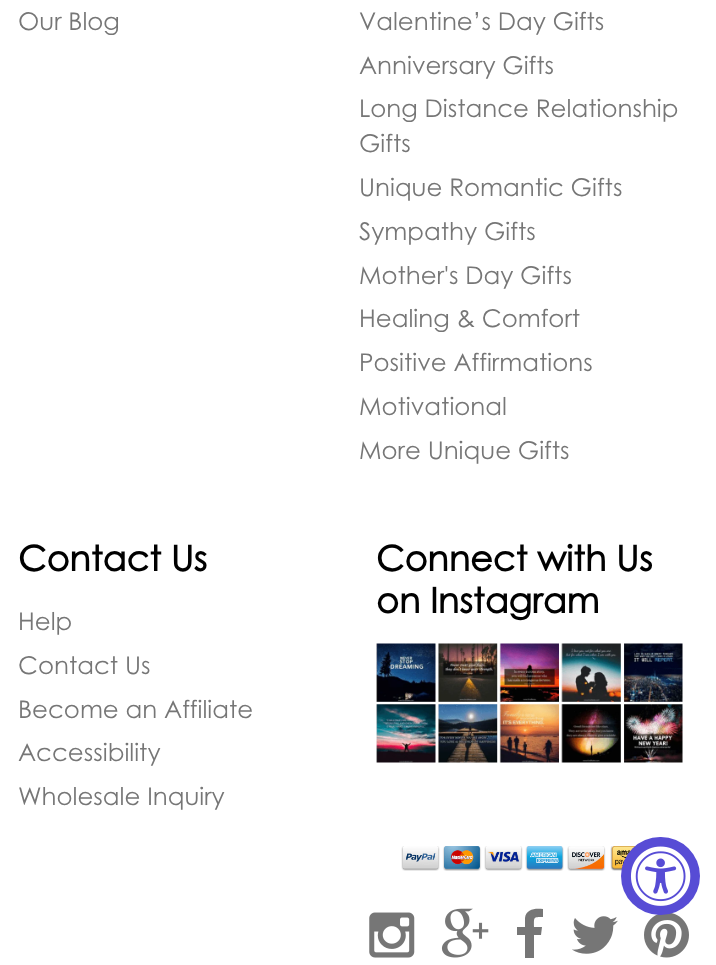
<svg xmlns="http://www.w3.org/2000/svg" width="716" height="965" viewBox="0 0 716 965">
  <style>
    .t1 { font: 24.5px Century Gothic; fill: #767676; }
    .t2 { font: bold 35px Century Gothic; fill: #000; }
  </style>
  <rect width="100%" height="100%" fill="#fff"/>
  <text x="18" y="30" class="t1">Our Blog</text>
  <text x="359" y="30" class="t1">Valentine’s Day Gifts</text>
  <text x="359" y="74" class="t1">Anniversary Gifts</text>
  <text x="359" y="117" class="t1">Long Distance Relationship</text>
  <text x="359" y="152" class="t1">Gifts</text>
  <text x="359" y="196" class="t1">Unique Romantic Gifts</text>
  <text x="359" y="240" class="t1">Sympathy Gifts</text>
  <text x="359" y="284" class="t1">Mother's Day Gifts</text>
  <text x="359" y="327" class="t1">Healing &amp; Comfort</text>
  <text x="359" y="371" class="t1">Positive Affirmations</text>
  <text x="359" y="415" class="t1">Motivational</text>
  <text x="359" y="459" class="t1">More Unique Gifts</text>
  <text x="18" y="571" class="t2">Contact Us</text>
  <text x="18" y="630" class="t1">Help</text>
  <text x="18" y="674" class="t1">Contact Us</text>
  <text x="18" y="718" class="t1">Become an Affiliate</text>
  <text x="18" y="761" class="t1">Accessibility</text>
  <text x="18" y="805" class="t1">Wholesale Inquiry</text>
  <text x="376" y="571" class="t2">Connect with Us</text>
  <text x="376" y="613" class="t2">on Instagram</text>
  <image x="376" y="643" width="307" height="120" href="images/1.png"/>
  <image x="401" y="846" width="234" height="25" href="images/2.png"/>
  <image x="369" y="912" width="46" height="46" href="images/3.png"/>
  <image x="441" y="908" width="48" height="50" href="images/4.png"/>
  <path d="M543 909V917C533 917 534 917 534 927H542L541 935H534V958H525V935H517V927H525V918C526 909 535 908 543 909Z" fill="#767676"/>
  <image x="572" y="916" width="46" height="38" href="images/5.png"/>
  <image x="644" y="913" width="45" height="45" href="images/6.png"/>
  <rect x="621" y="837" width="79" height="78" rx="39" fill="#574cd5"/>
  <image x="630" y="846" width="61" height="60" href="images/7.png"/>
</svg>
